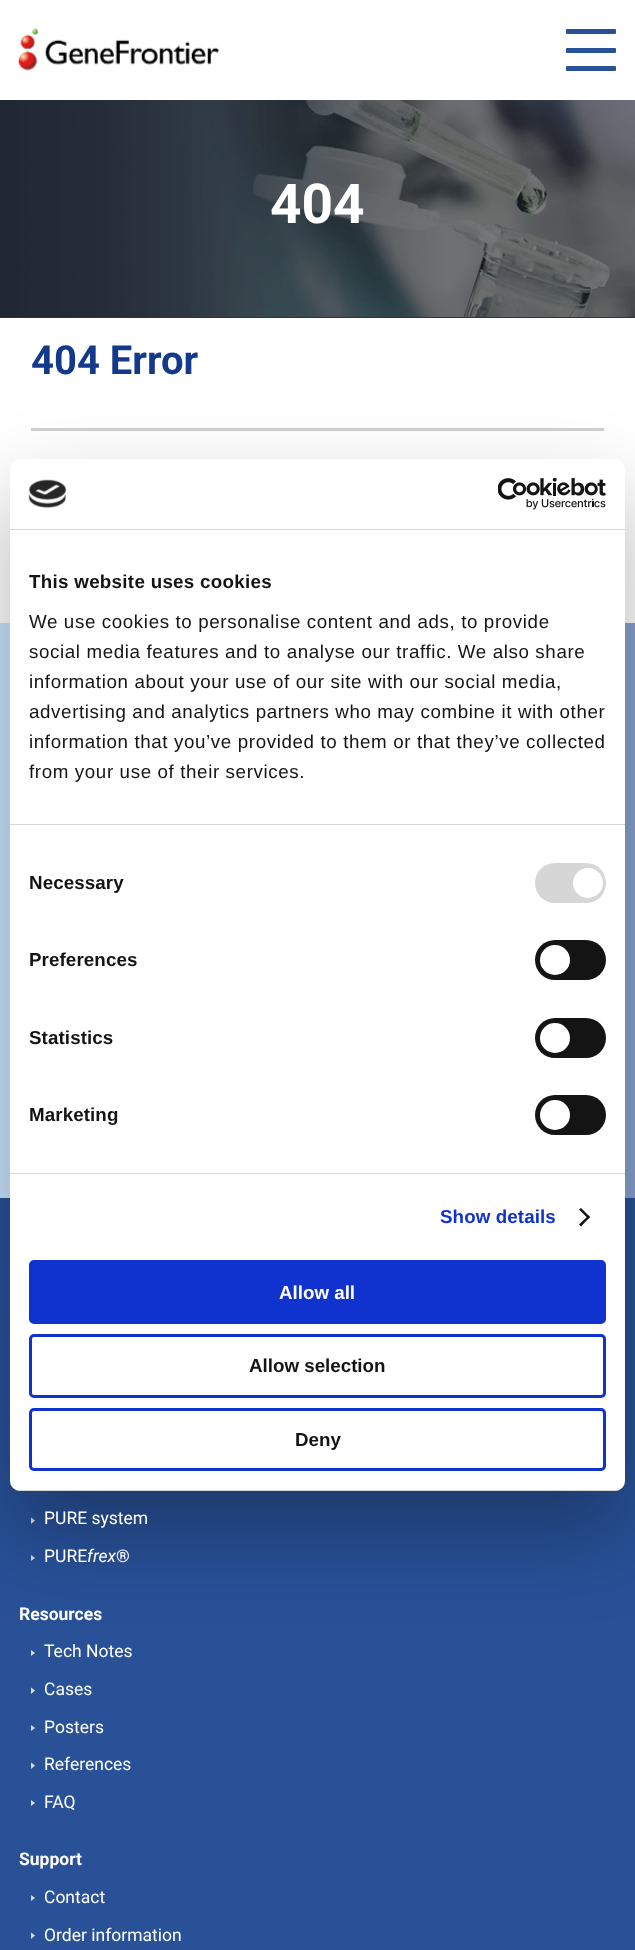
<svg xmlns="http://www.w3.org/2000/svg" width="635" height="1950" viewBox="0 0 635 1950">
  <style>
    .t1 { font: bold 55px Roboto; fill: #fff; }
    .t2 { font: bold 40px Roboto; fill: #13398a; }
    .t3 { font: bold 18.75px Liberation Sans; letter-spacing: 0.3px; fill: #141414; }
    .t4 { font: 18.75px Liberation Sans; letter-spacing: 0.62px; fill: #141414; }
    .t5 { font: bold 18.75px Liberation Sans; letter-spacing: 0.1px; fill: #141414; }
    .t6 { font: bold 18.75px Liberation Sans; letter-spacing: 0.1px; fill: #1032cf; }
    .t7 { font: bold 18.75px Liberation Sans; fill: #fff; }
    .t8 { font: bold 18.75px Liberation Sans; fill: #141414; }
    .t9 { font: 17.5px Roboto; fill: #fff; }
    .t10 { font: italic 17.5px Roboto; fill: #fff; }
    .t11 { font: bold 17.5px Roboto; fill: #fff; }
  </style>
  <defs>
    <linearGradient id="g1" gradientUnits="userSpaceOnUse" x1="0" y1="910" x2="635" y2="910"><stop offset="0" stop-color="#c9e6ff"/><stop offset="1" stop-color="#89a2ce"/></linearGradient>
    <clipPath id="clip1"><rect x="10" y="459" width="615" height="1032" rx="10"/></clipPath>
  </defs>
  <rect width="100%" height="100%" fill="#fff"/>
  <image x="18" y="28" width="201" height="43" href="images/1.png"/>
  <rect x="566" y="48" width="50" height="5" rx="1" fill="#285198"/>
  <rect x="566" y="29" width="50" height="5" rx="1" fill="#285198"/>
  <rect x="566" y="66" width="50" height="5" rx="1" fill="#285198"/>
  <rect x="0" y="317" width="635" height="1" fill="#333"/>
  <image x="0" y="100" width="635" height="217" href="images/2.png"/>
  <text x="270" y="223" class="t1">404</text>
  <rect x="31" y="428" width="573" height="3" fill="#d0d0d0"/>
  <text x="31" y="374" class="t2">404 Error</text>
  <rect x="0" y="623" width="635" height="575" fill="url(#g1)"/>
  <rect x="0" y="1198" width="635" height="752" fill="#285198"/>
  <path d="M35 1520.5L31 1524V1517.5Z" fill="#ddd"/>
  <path d="M35 1558L31 1561V1555Z" fill="#ddd"/>
  <path d="M35 1653L31 1656V1650Z" fill="#ddd"/>
  <rect x="10" y="499" width="615" height="1032" rx="10" fill="#0000004d" filter="blur(42.5px)"/>
  <rect x="10" y="459" width="615" height="1032" rx="10" fill="#fff"/>
  <rect x="10" y="529" width="615" height="1" fill="#d6d6d6"/>
  <image x="28" y="479" width="39" height="29" href="images/3.png"/>
  <image x="498" y="478" width="108" height="32" href="images/4.png"/>
  <rect x="10" y="824" width="615" height="1" fill="#d6d6d6"/>
  <text x="29" y="588" class="t3">This website uses cookies</text>
  <text x="29" y="628" class="t4">We use cookies to personalise content and ads, to provide</text>
  <text x="29" y="658" class="t4">social media features and to analyse our traffic. We also share</text>
  <text x="29" y="688" class="t4">information about your use of our site with our social media,</text>
  <text x="29" y="718" class="t4">advertising and analytics partners who may combine it with other</text>
  <text x="29" y="748" class="t4">information that you’ve provided to them or that they’ve collected</text>
  <text x="29" y="778" class="t4">from your use of their services.</text>
  <rect x="10" y="1173" width="615" height="1" fill="#d6d6d6"/>
  <text x="29" y="889" class="t5">Necessary</text>
  <rect x="535" y="863" width="71" height="40" rx="20" fill="#d6d6d6"/>
  <circle cx="588" cy="883" r="15" fill="#fff"/>
  <text x="29" y="966" class="t5">Preferences</text>
  <rect x="535" y="940" width="71" height="40" rx="20" fill="#141414"/>
  <circle cx="555" cy="960" r="15" fill="#fff"/>
  <text x="29" y="1044" class="t5">Statistics</text>
  <rect x="535" y="1018" width="71" height="40" rx="20" fill="#141414"/>
  <circle cx="555" cy="1038" r="15" fill="#fff"/>
  <text x="29" y="1121" class="t5">Marketing</text>
  <rect x="535" y="1095" width="71" height="40" rx="20" fill="#141414"/>
  <circle cx="555" cy="1115" r="15" fill="#fff"/>
  <text x="440" y="1223" class="t6">Show details</text>
  <path d="M581 1208L590 1217L588.5 1219L579 1209.5Z" fill="#141414"/>
  <path d="M588.5 1215.5L590 1217L581 1226.5L579 1224.5Z" fill="#141414"/>
  <g clip-path="url(#clip1)">
    <rect x="10" y="1490" width="615" height="1" fill="#d6d6d6"/>
  </g>
  <rect x="30.5" y="1261.5" width="574" height="61" rx="3.5" fill="#1032cf" stroke="#1032cf" stroke-width="3"/>
  <text x="279" y="1299" class="t7">Allow all</text>
  <rect x="30.5" y="1335.5" width="574" height="61" rx="3.5" fill="none" stroke="#1032cf" stroke-width="3"/>
  <text x="249" y="1372" class="t8">Allow selection</text>
  <rect x="30.5" y="1409.5" width="574" height="60" rx="3.5" fill="none" stroke="#1032cf" stroke-width="3"/>
  <text x="295" y="1446" class="t8">Deny</text>
  <text x="44" y="1524" class="t9">PURE system</text>
  <text x="44" y="1562" class="t9">PURE</text>
  <text x="87" y="1562" class="t10">frex</text>
  <text x="116" y="1562" class="t9">®</text>
  <text x="19" y="1620" class="t11">Resources</text>
  <text x="44" y="1657" class="t9">Tech Notes</text>
  <path d="M35 1690.5L31 1694V1687.5Z" fill="#ddd"/>
  <text x="44" y="1695" class="t9">Cases</text>
  <path d="M35 1728L31 1731V1725Z" fill="#ddd"/>
  <text x="44" y="1733" class="t9">Posters</text>
  <path d="M35 1765.5L31 1769V1762.5Z" fill="#ddd"/>
  <text x="44" y="1770" class="t9">References</text>
  <path d="M35 1803L31 1806V1800Z" fill="#ddd"/>
  <text x="44" y="1808" class="t9">FAQ</text>
  <text x="19" y="1865" class="t11">Support</text>
  <path d="M35 1898L31 1901V1895Z" fill="#ddd"/>
  <text x="44" y="1903" class="t9">Contact</text>
  <path d="M35 1935.5L31 1939V1932.5Z" fill="#ddd"/>
  <text x="44" y="1941" class="t9">Order information</text>
</svg>
